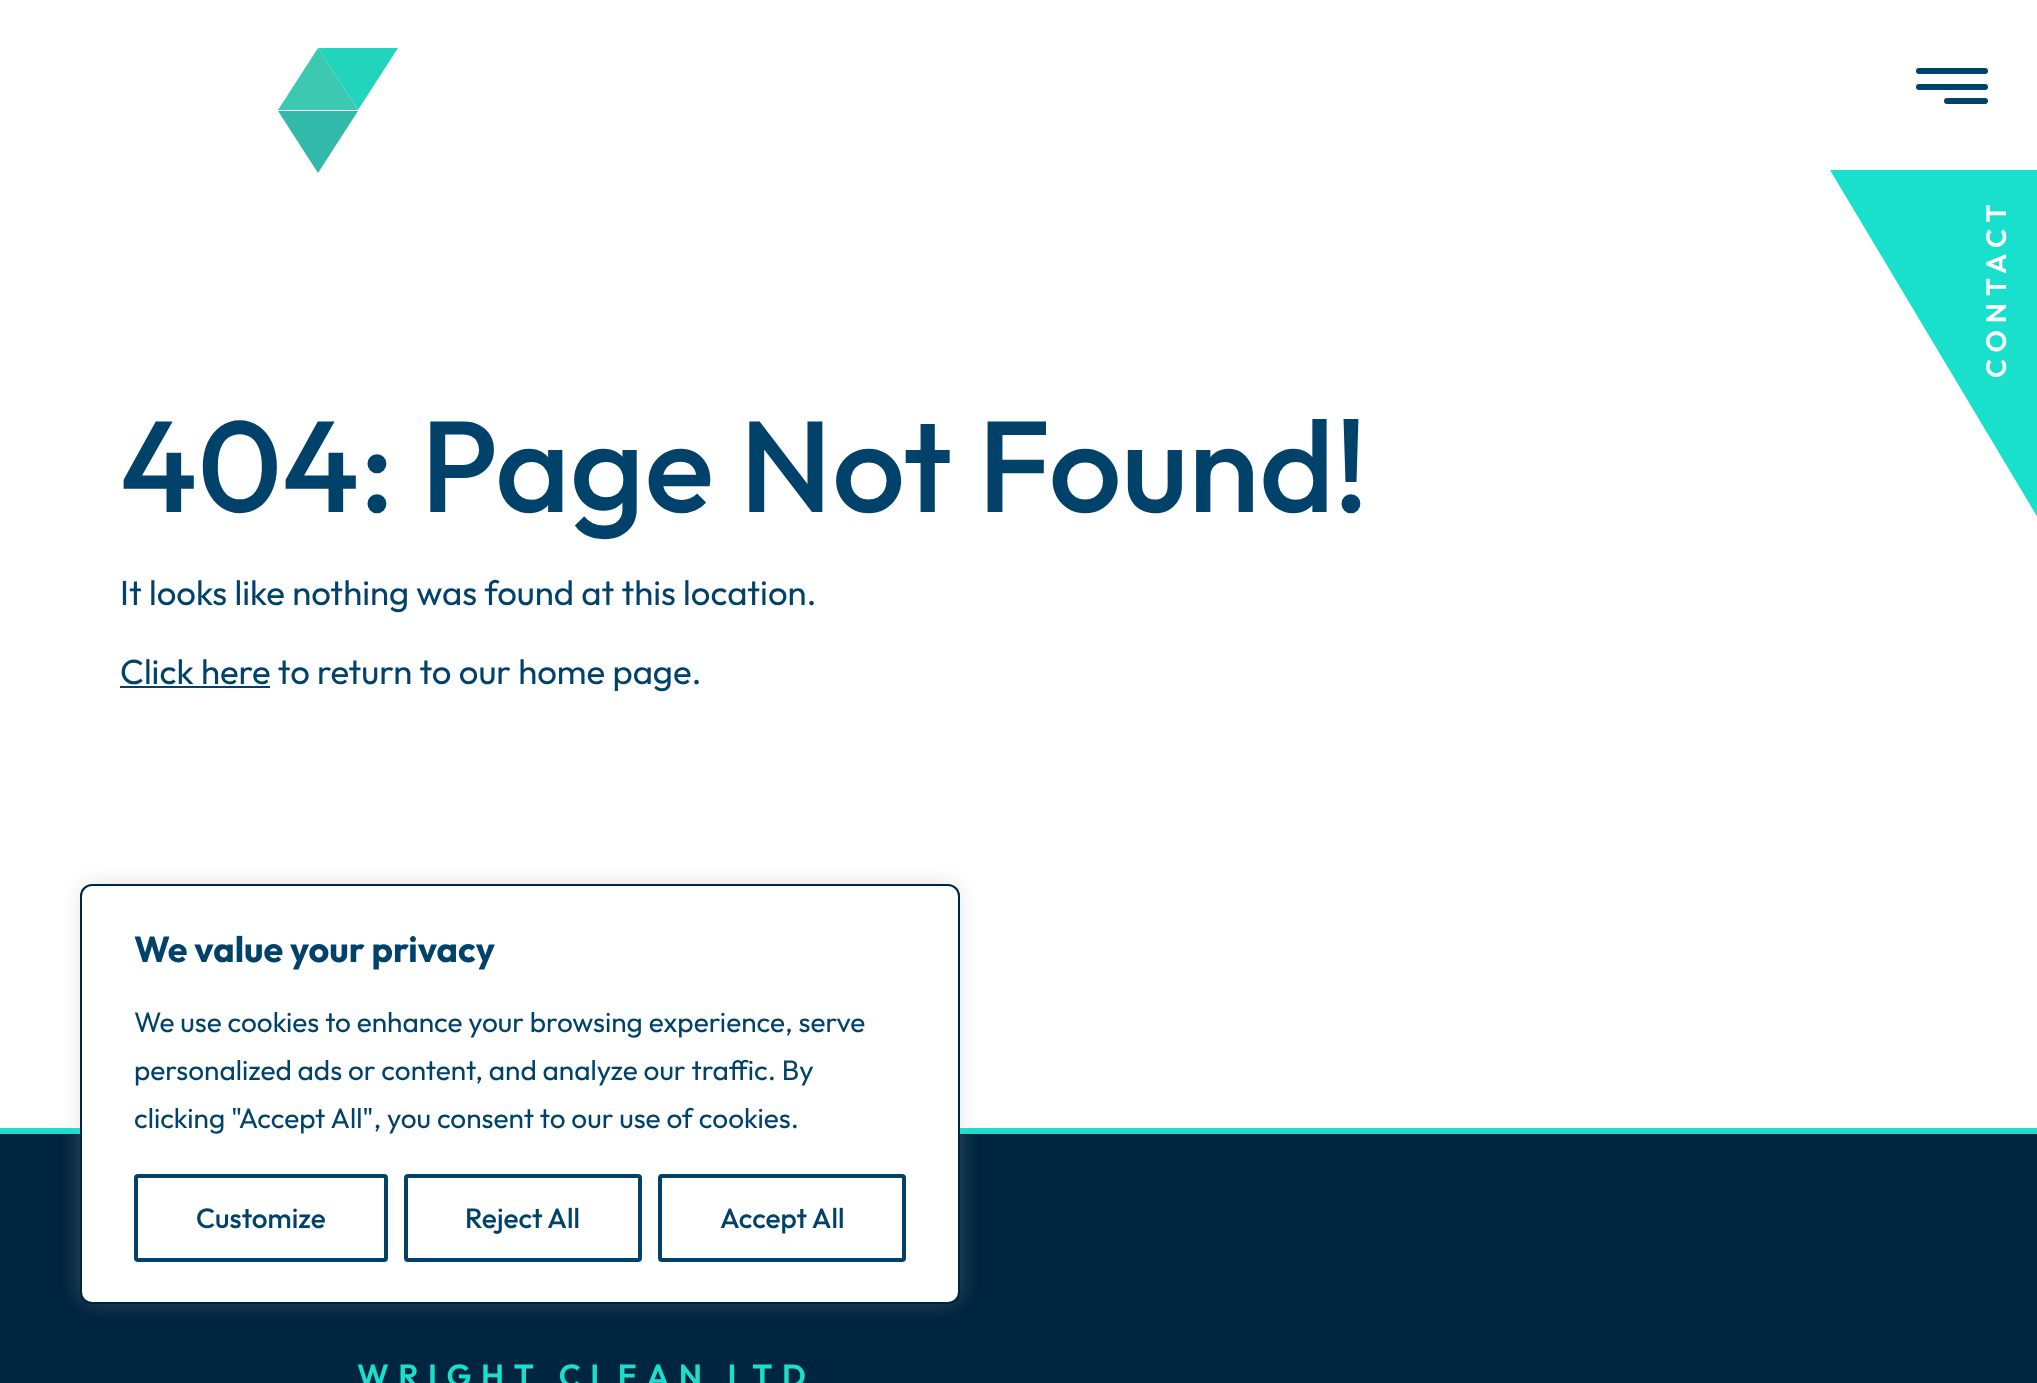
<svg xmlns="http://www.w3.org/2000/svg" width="2037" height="1383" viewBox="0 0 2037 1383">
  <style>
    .t1 { font: 600 28px Outfit; letter-spacing: 7px; fill: #fff; }
    .t2 { font: 500 129.25px Outfit; fill: #01426a; }
    .t3 { font: 34.75px Outfit; fill: #01426a; }
    .t4 { font: 600 32px Outfit; letter-spacing: 9.6px; fill: #19dfcd; }
    .t5 { font: bold 36px Outfit; fill: #01426a; }
    .t6 { font: 28px Outfit; fill: #01426a; }
    .t7 { font: 500 28px Outfit; fill: #01426a; }
  </style>
  <rect width="100%" height="100%" fill="#fff"/>
  <path d="M318 48L358 110H278Z" fill="#3cc8b1"/>
  <path d="M318 48L358 110L398 48Z" fill="#22d4bc"/>
  <path d="M318 173L358 111H278Z" fill="#00a793cc"/>
  <rect x="1916" y="68" width="72" height="6" rx="3" fill="#01426a"/>
  <rect x="1916" y="84" width="72" height="6" rx="3" fill="#01426a"/>
  <rect x="1944" y="98" width="44" height="6" rx="3" fill="#01426a"/>
  <path d="M1830 170L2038 518V170Z" fill="#19dfcd"/>
  <text x="2006" y="378" transform="rotate(-90 2006 378)" class="t1">CONTACT</text>
  <text x="120" y="512" class="t2">404: Page Not Found!</text>
  <text x="120" y="605" class="t3">It looks like nothing was found at this location.</text>
  <rect x="120" y="686" width="150" height="2" fill="#01426a"/>
  <text x="120" y="684" class="t3">Click here to return to our home page.</text>
  <rect x="0" y="1128" width="2037" height="6" fill="#19dfcd"/>
  <rect x="0" y="1134" width="2037" height="249" fill="#002541"/>
  <text x="357" y="1387" class="t4">WRIGHT CLEAN LTD</text>
  <rect x="80" y="882" width="880" height="420" rx="12" fill="#acabab4d" filter="blur(10px)"/>
  <rect x="81" y="885" width="878" height="418" rx="11" fill="#fff" stroke="#002541" stroke-width="2"/>
  <text x="134" y="962" class="t5">We value your privacy</text>
  <text x="134" y="1032" class="t6">We use cookies to enhance your browsing experience, serve</text>
  <text x="134" y="1080" class="t6">personalized ads or content, and analyze our traffic. By</text>
  <text x="134" y="1128" class="t6">clicking "Accept All", you consent to our use of cookies.</text>
  <rect x="136" y="1176" width="250" height="84" rx="2" fill="none" stroke="#01426a" stroke-width="4"/>
  <text x="196" y="1228" class="t7">Customize</text>
  <rect x="406" y="1176" width="234" height="84" rx="2" fill="none" stroke="#01426a" stroke-width="4"/>
  <text x="465" y="1228" class="t7">Reject All</text>
  <rect x="660" y="1176" width="244" height="84" rx="2" fill="none" stroke="#01426a" stroke-width="4"/>
  <text x="720" y="1228" class="t7">Accept All</text>
</svg>
